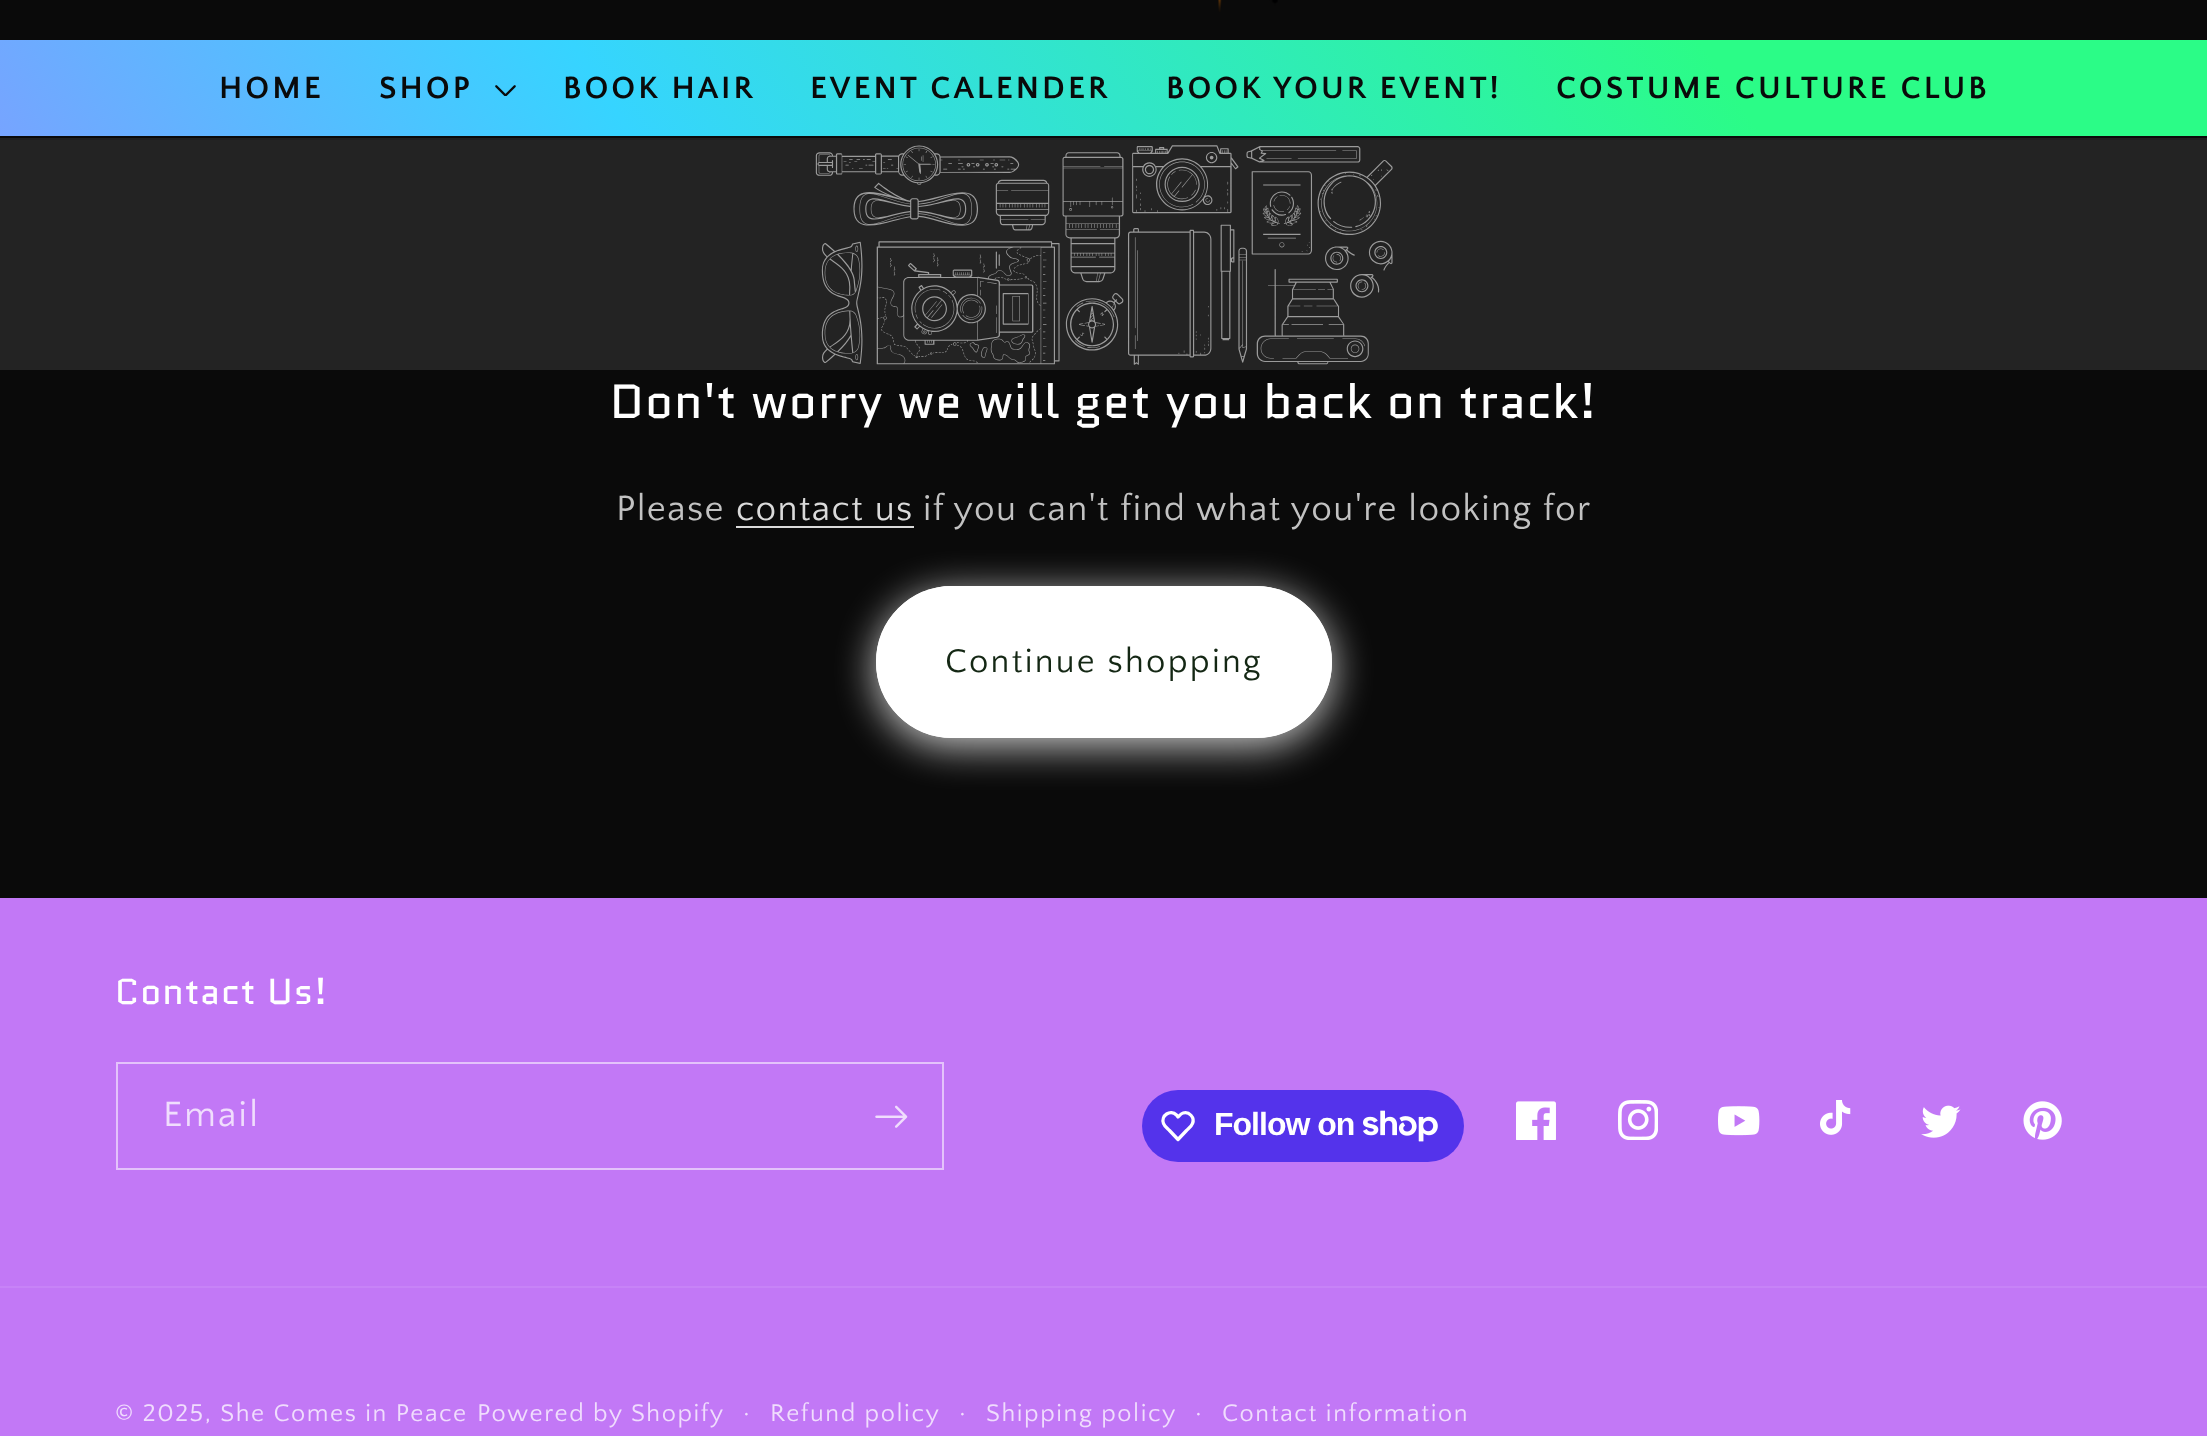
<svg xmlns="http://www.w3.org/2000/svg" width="2207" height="1436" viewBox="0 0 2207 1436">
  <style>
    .t1 { font: bold 32.25px Quattrocento Sans; letter-spacing: 3px; fill: #0a0a0a; }
    .t2 { font: 48px Quantico; letter-spacing: 1.2px; fill: #fff; }
    .t3 { font: 36.75px Quattrocento Sans; letter-spacing: 1.4px; fill: #c2c2c2; }
    .t4 { font: 36.75px Quattrocento Sans; letter-spacing: 1.4px; fill: #dadada; }
    .t5 { font: 34.5px Quattrocento Sans; letter-spacing: 2.25px; fill: #142714; }
    .t6 { font: 36px Quantico; letter-spacing: 1.2px; fill: #fff; }
    .t7 { font: 36.75px Quattrocento Sans; letter-spacing: 2.25px; fill: #f0ddfd; }
    .t8 { font: bold 32px Liberation Sans; letter-spacing: -1px; fill: #fff; }
    .t9 { font: 25.25px Quattrocento Sans; letter-spacing: 1.6px; fill: #f0ddfd; }
    .t10 { font: 28px Quattrocento Sans; letter-spacing: 1.6px; fill: #f0ddfd; }
  </style>
  <defs>
    <linearGradient id="g1" gradientUnits="userSpaceOnUse" x1="-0.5" y1="1435" x2="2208" y2="0.7"><stop offset="0.08" stop-color="#b377ff"/><stop offset="0.47" stop-color="#36d4ff"/><stop offset="0.83" stop-color="#2bfc87"/></linearGradient>
  </defs>
  <rect width="100%" height="100%" fill="#0a0a0a"/>
  <rect x="0" y="138" width="2207" height="2" fill="#1e1e1e"/>
  <image x="1218" y="0" width="60" height="12" href="images/1.png"/>
  <rect x="0" y="40" width="2207" height="96" fill="url(#g1)"/>
  <text x="219" y="98" class="t1">HOME</text>
  <text x="379" y="98" class="t1">SHOP</text>
  <image x="495" y="85" width="21" height="11" href="images/2.png"/>
  <text x="563" y="98" class="t1">BOOK HAIR</text>
  <text x="810" y="98" class="t1">EVENT CALENDER</text>
  <text x="1166" y="98" class="t1">BOOK YOUR EVENT!</text>
  <text x="1556" y="98" class="t1">COSTUME CULTURE CLUB</text>
  <rect x="0" y="140" width="2207" height="230" fill="#232323"/>
  <image x="815" y="145" width="578" height="220" href="images/3.png"/>
  <text x="610" y="418" class="t2">Don't worry we will get you back on track!</text>
  <text x="616" y="520" class="t3">Please</text>
  <text x="736" y="520" class="t4">contact us</text>
  <rect x="736" y="526" width="178" height="2" fill="#dadada"/>
  <text x="923" y="520" class="t3">if you can't find what you're looking for</text>
  <rect x="876" y="594" width="456" height="152" rx="76" fill="#ffffffcc" filter="blur(20px)"/>
  <rect x="876" y="586" width="456" height="152" rx="76" fill="#fff"/>
  <rect x="888" y="598" width="432" height="128" rx="64" fill="none" stroke="#fff" stroke-width="24"/>
  <text x="945" y="672" class="t5">Continue shopping</text>
  <rect x="0" y="898" width="2207" height="538" fill="#c278f6"/>
  <text x="115" y="1004" class="t6">Contact Us!</text>
  <rect x="117" y="1063" width="826" height="106" fill="none" stroke="#e4c2fb" stroke-width="2"/>
  <text x="163" y="1126" class="t7">Email</text>
  <image x="875" y="1105" width="33" height="23" href="images/4.png"/>
  <rect x="1142" y="1090" width="322" height="72" rx="36" fill="#5433eb"/>
  <path d="M1176.5 1115L1178 1117C1179.5 1115.5 1181 1113.5 1183 1113C1189 1111 1195 1117.5 1192.5 1123.5C1191.5 1126.5 1188.5 1128.5 1186.5 1130.5L1178 1139.5L1169.5 1130.5C1167.5 1128.5 1164.5 1126.5 1163.5 1123.5C1160.5 1115.5 1170.5 1109 1176.5 1115Z" fill="none" stroke="#fff" stroke-width="3.3" stroke-linejoin="round"/>
  <text x="1214" y="1135" class="t8">Follow on</text>
  <image x="1363" y="1110" width="75" height="32" href="images/5.png"/>
  <image x="1516" y="1101" width="40" height="39" href="images/6.png"/>
  <image x="1618" y="1100" width="40" height="40" href="images/7.png"/>
  <image x="1718" y="1106" width="42" height="30" href="images/8.png"/>
  <image x="1820" y="1100" width="31" height="35" href="images/9.png"/>
  <image x="1921" y="1105" width="40" height="33" href="images/10.png"/>
  <image x="2023" y="1101" width="39" height="39" href="images/11.png"/>
  <rect x="0" y="1286" width="2207" height="2" fill="#c783f7"/>
  <text x="115" y="1421" class="t9">© 2025, She Comes in Peace</text>
  <text x="477" y="1421" class="t9">Powered by Shopify</text>
  <text x="743" y="1421" class="t10">·</text>
  <text x="770" y="1421" class="t9">Refund policy</text>
  <text x="959" y="1421" class="t10">·</text>
  <text x="986" y="1421" class="t9">Shipping policy</text>
  <text x="1195" y="1421" class="t10">·</text>
  <text x="1222" y="1421" class="t9">Contact information</text>
</svg>
